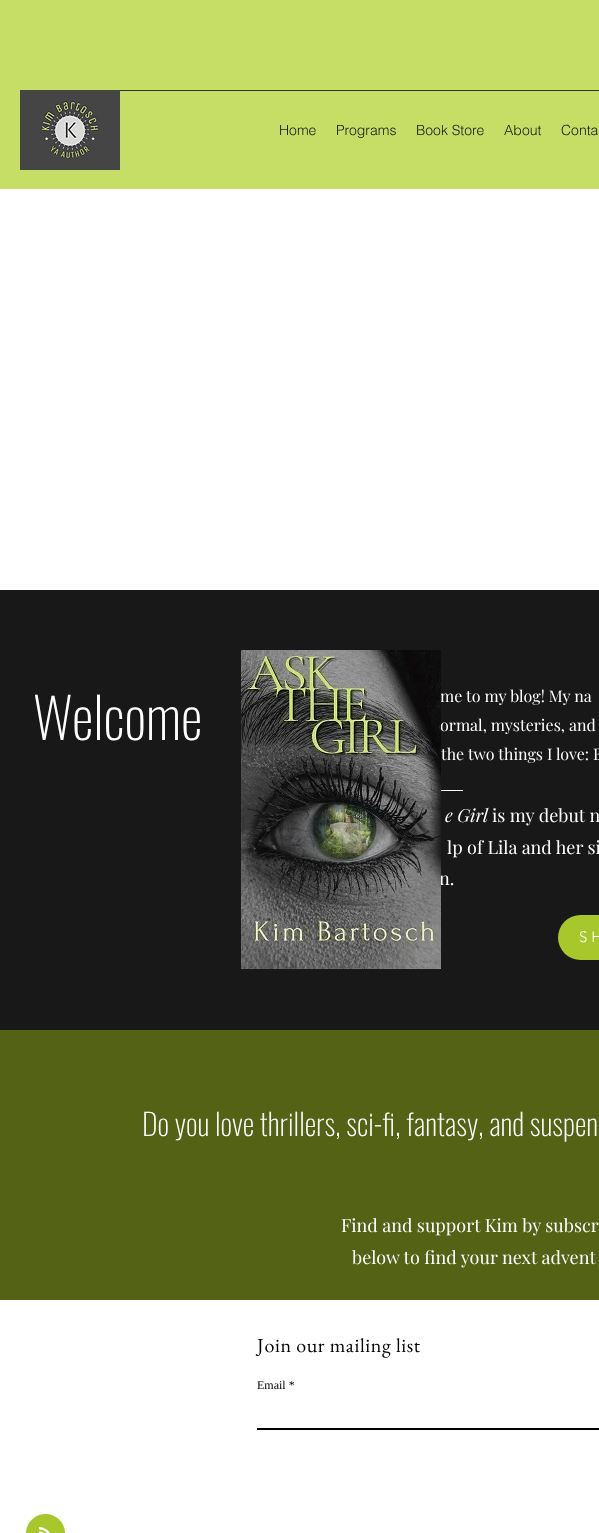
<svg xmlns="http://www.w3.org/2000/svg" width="599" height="1533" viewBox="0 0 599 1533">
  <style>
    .t1 { font: 300 14px helvetica; fill: #181818; }
    .t2 { font: 16px Playfair Display; fill: #fff; }
    .t3 { font: 18px Playfair Display; fill: #fff; }
    .t4 { font: 200 56px Oswald; fill: #fff; }
    .t5 { font: italic 18px Playfair Display; fill: #fff; }
    .t6 { font: 300 15px 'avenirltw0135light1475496'; letter-spacing: 4px; fill: #fff; }
    .t7 { font: 200 30px Oswald; fill: #fff; }
    .t8 { font: 20px EB Garamond; letter-spacing: 0.6px; fill: #000; }
    .t9 { font: 12px Liberation Serif; fill: #000; }
  </style>
  <rect width="100%" height="100%" fill="#fff"/>
  <rect x="0" y="0" width="599" height="189" fill="#c6de65"/>
  <rect x="120" y="90" width="479" height="1" fill="#323624"/>
  <image x="20" y="90" width="100" height="80" href="images/1.png"/>
  <text x="279" y="135" class="t1">Home</text>
  <text x="336" y="135" class="t1">Programs</text>
  <text x="416" y="135" class="t1">Book Store</text>
  <text x="504" y="135" class="t1">About</text>
  <text x="561" y="135" class="t1">Conta</text>
  <rect x="0" y="590" width="599" height="440" fill="#181818"/>
  <text x="440" y="702" class="t2">me to my blog! My na</text>
  <text x="440" y="731" class="t2">ormal, mysteries, and</text>
  <text x="439" y="885" class="t3">n.</text>
  <image x="241" y="650" width="200" height="319" href="images/2.png"/>
  <text x="33" y="740" class="t4">Welcome</text>
  <text x="441" y="760" class="t2">the two things I love: B</text>
  <rect x="441" y="790" width="22" height="1" fill="#fff"/>
  <text x="445" y="822" class="t5">e Girl</text>
  <text x="492" y="822" class="t3">is my debut n</text>
  <text x="447" y="854" class="t3">lp of Lila and her si</text>
  <rect x="558" y="915" width="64" height="45" rx="22.5" fill="#a8c72b"/>
  <text x="579" y="942" class="t6">SH</text>
  <rect x="0" y="1030" width="599" height="270" fill="#536215"/>
  <text x="142" y="1136" class="t7">Do you love thrillers, sci-fi, fantasy, and suspen</text>
  <text x="341" y="1232" class="t3">Find and support Kim by subscr</text>
  <text x="352" y="1264" class="t3">below to find your next advent</text>
  <text x="257" y="1352" class="t8">Join our mailing list</text>
  <text x="257" y="1389" class="t9">Email *</text>
  <rect x="257" y="1428" width="342" height="2" fill="#000"/>
  <image x="26" y="1514" width="39" height="19" href="images/3.png"/>
</svg>
